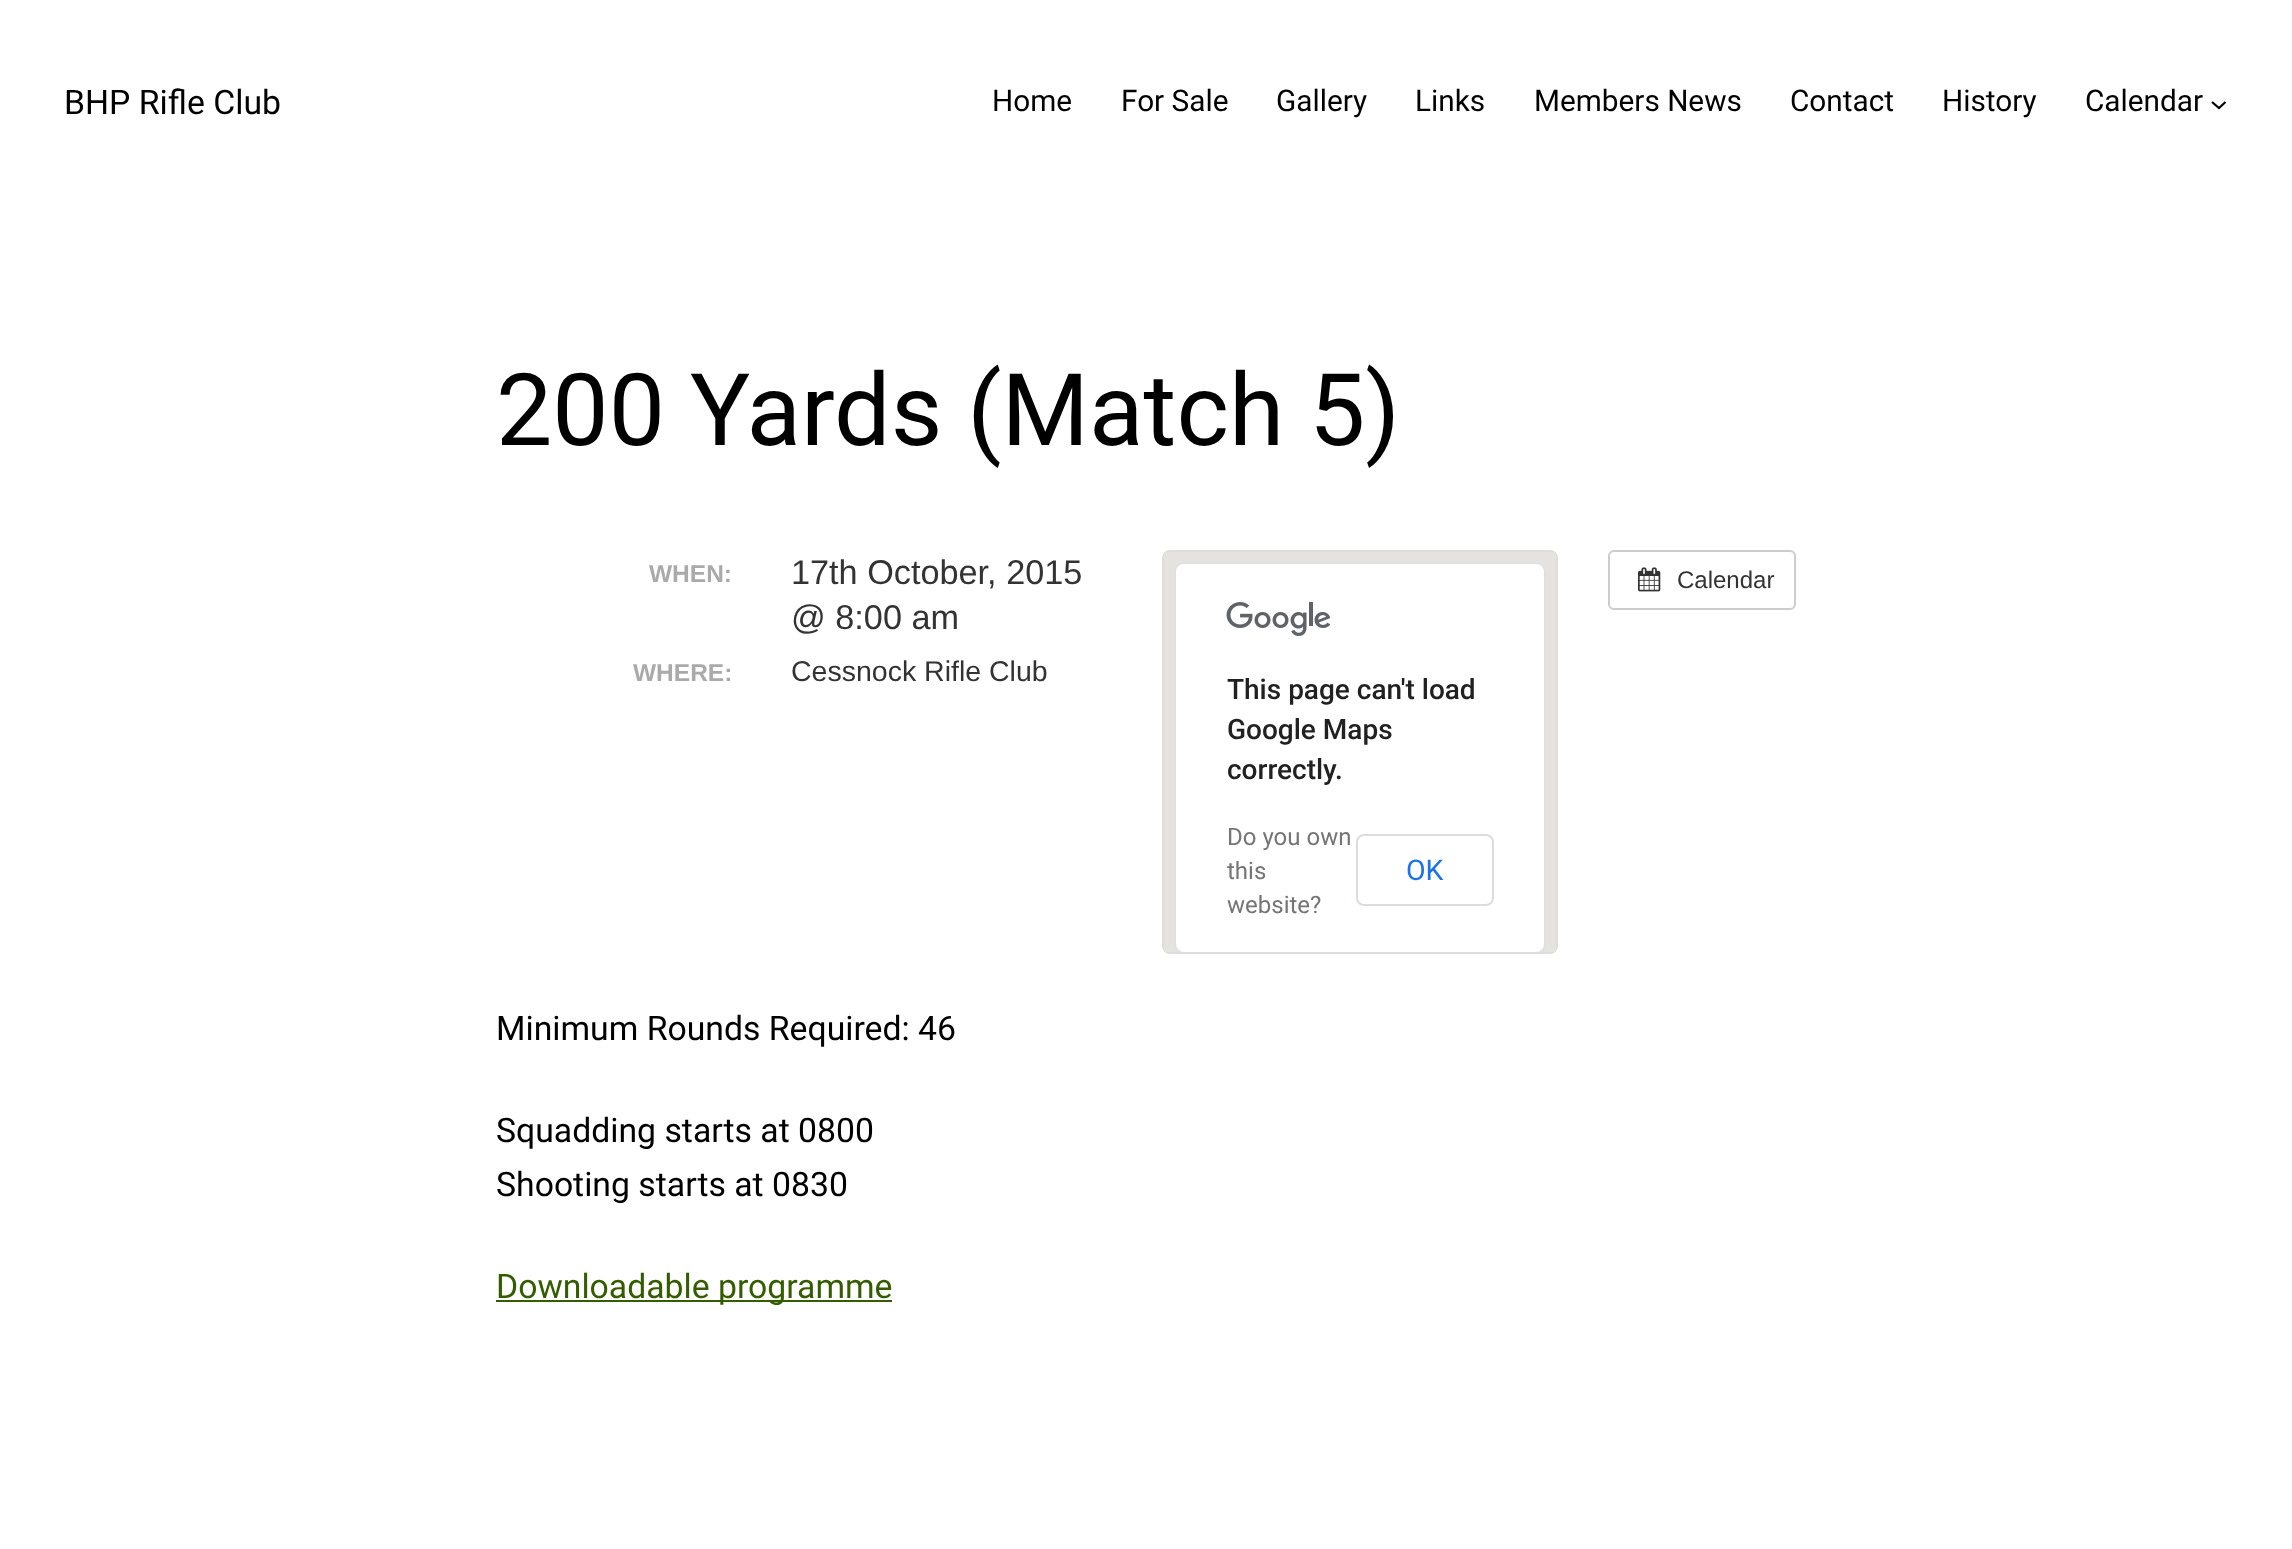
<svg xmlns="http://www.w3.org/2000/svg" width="2292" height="1549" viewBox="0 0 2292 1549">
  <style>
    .t1 { font: 33.75px Roboto; fill: #000; }
    .t2 { font: 29.75px Roboto; fill: #000; }
    .t3 { font: 100.25px Roboto; fill: #000; }
    .t4 { font: bold 24.5px Liberation Sans; fill: #aaa; }
    .t5 { font: 34.25px Liberation Sans; fill: #333; }
    .t6 { font: 28.5px Liberation Sans; fill: #333; }
    .t7 { font: 500 28px Roboto; fill: #212121; }
    .t8 { font: 24px Roboto; fill: #757575; }
    .t9 { font: 28.5px Roboto; fill: #1a73e8; }
    .t10 { font: 24px Liberation Sans; fill: #333; }
    .t11 { font: 33.75px Roboto; fill: #345c00; }
  </style>
  <defs>
    <clipPath id="clip1"><rect x="1164" y="552" width="392" height="400"/></clipPath>
  </defs>
  <rect width="100%" height="100%" fill="#fff"/>
  <text x="64" y="114" class="t1">BHP Rifle Club</text>
  <text x="992" y="111" class="t2">Home</text>
  <text x="1121" y="111" class="t2">For Sale</text>
  <text x="1276" y="111" class="t2">Gallery</text>
  <text x="1415" y="111" class="t2">Links</text>
  <text x="1534" y="111" class="t2">Members News</text>
  <text x="1790" y="111" class="t2">Contact</text>
  <text x="1942" y="111" class="t2">History</text>
  <text x="2085" y="111" class="t2">Calendar</text>
  <path d="M2212 102L2219 108L2225.5 102" fill="none" stroke="#000" stroke-width="2.2"/>
  <text x="496" y="445" class="t3">200 Yards (Match 5)</text>
  <text x="649" y="582" class="t4">WHEN:</text>
  <text x="791" y="584" class="t5">17th October, 2015</text>
  <text x="791" y="629" class="t5">@ 8:00 am</text>
  <text x="633" y="681" class="t4">WHERE:</text>
  <text x="791" y="681" class="t6">Cessnock Rifle Club</text>
  <rect x="1163" y="551" width="394" height="402" rx="7" fill="none" stroke="#ddd" stroke-width="2"/>
  <rect x="1164" y="552" width="392" height="400" fill="#e5e3df"/>
  <g clip-path="url(#clip1)">
    <rect x="1174" y="562" width="372" height="392" rx="10" fill="#fff"/>
    <rect x="1175" y="563" width="370" height="390" rx="9" fill="none" stroke="#0000001f" stroke-width="2"/>
  </g>
  <image x="1226" y="602" width="104" height="34" href="images/1.png"/>
  <text x="1227" y="699" class="t7">This page can't load</text>
  <text x="1227" y="739" class="t7">Google Maps</text>
  <text x="1227" y="779" class="t7">correctly.</text>
  <text x="1227" y="845" class="t8">Do you own</text>
  <text x="1227" y="879" class="t8">this</text>
  <text x="1227" y="913" class="t8">website?</text>
  <rect x="1357" y="835" width="136" height="70" rx="7" fill="none" stroke="#dadce0" stroke-width="2"/>
  <text x="1406" y="880" class="t9">OK</text>
  <rect x="1609" y="551" width="186" height="58" rx="5" fill="none" stroke="#ccc" stroke-width="2"/>
  <image x="1638" y="567" width="23" height="25" href="images/2.png"/>
  <text x="1677" y="588" class="t10">Calendar</text>
  <text x="496" y="1040" class="t1">Minimum Rounds Required: 46</text>
  <text x="496" y="1142" class="t1">Squadding starts at 0800</text>
  <text x="496" y="1196" class="t1">Shooting starts at 0830</text>
  <rect x="496" y="1300" width="396" height="2" fill="#345c00"/>
  <text x="496" y="1298" class="t11">Downloadable programme</text>
</svg>
